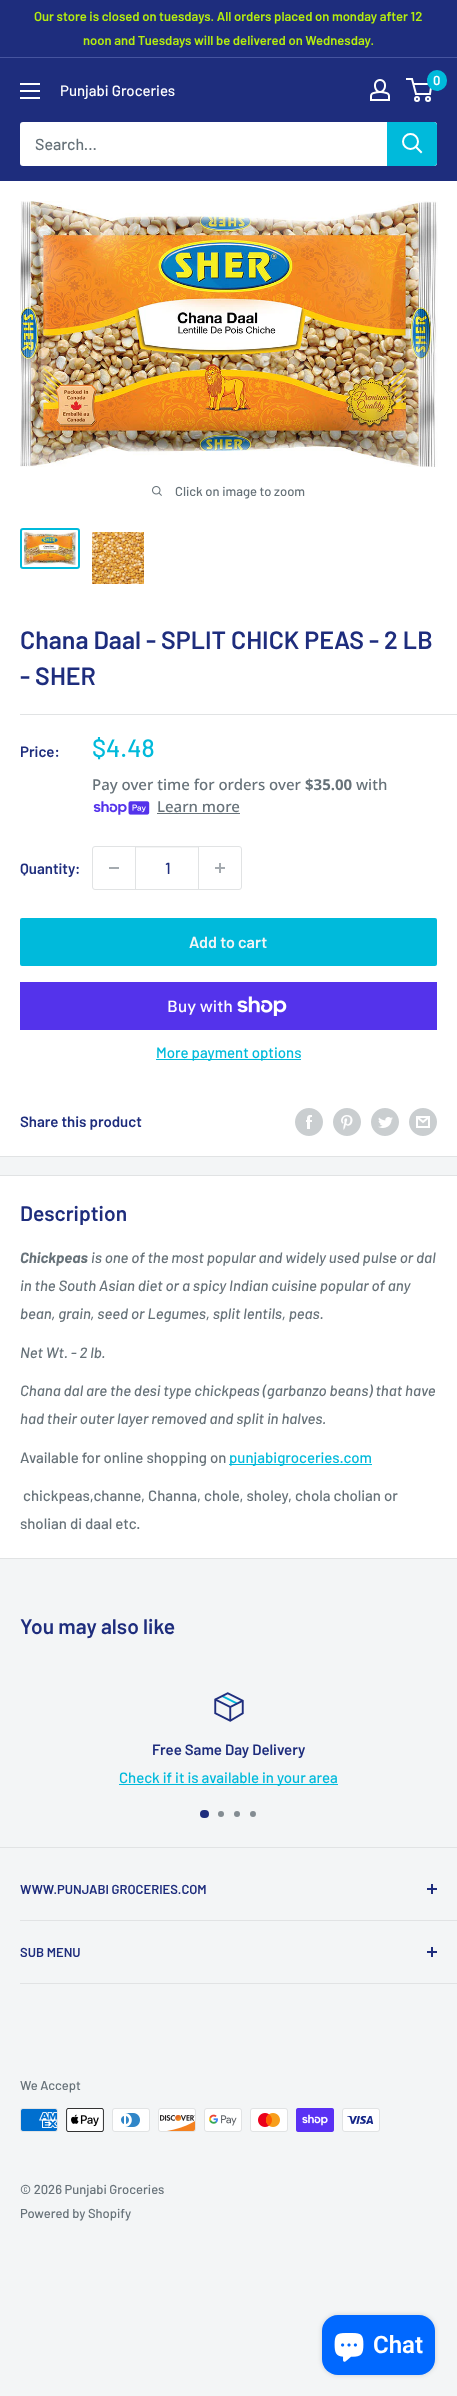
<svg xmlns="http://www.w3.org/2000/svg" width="457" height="2396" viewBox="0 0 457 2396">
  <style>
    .t1 { font: 600 13px Barlow; fill: #b5ed0f; }
    .t2 { font: 600 13px Barlow; fill: #fff; }
    .t3 { font: 500 15px Barlow; fill: #fff; }
    .t4 { font: 500 16px Barlow; fill: #677279; }
    .t5 { font: 500 13px Barlow; fill: #677279; }
    .t6 { font: 600 25px Barlow; fill: #1e2d7d; }
    .t7 { font: 600 15px Barlow; fill: #1e2d7d; }
    .t8 { font: 500 25px Barlow; fill: #00badb; }
    .t9 { font: 500 15px Noto Sans; fill: #677279; }
    .t10 { font: bold 15px Noto Sans; fill: #677279; }
    .t11 { font: 500 16px Barlow; fill: #1e2d7d; }
    .t12 { font: 600 16px Barlow; fill: #f3f5f6; }
    .t13 { font: 500 16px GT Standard; fill: #fff; }
    .t14 { font: 500 15px Barlow; fill: #00badb; }
    .t15 { font: 600 21px Barlow; fill: #1e2d7d; }
    .t16 { font: italic bold 15px Barlow; fill: #677279; }
    .t17 { font: italic 500 15px Barlow; fill: #677279; }
    .t18 { font: 500 15px Barlow; fill: #677279; }
    .t19 { font: 600 13px Barlow; fill: #1e2d7d; }
    .t20 { font: 600 24px Roboto; fill: #fff; }
  </style>
  <rect width="100%" height="100%" fill="#f3f5f6"/>
  <rect x="0" y="0" width="457" height="57" fill="#1e2d7d"/>
  <rect x="0" y="57" width="457" height="1" fill="#46549f"/>
  <text x="34" y="21" class="t1">Our store is closed on tuesdays. All orders placed on monday after 12</text>
  <text x="83" y="45" class="t1">noon and Tuesdays will be delivered on Wednesday.</text>
  <rect x="0" y="58" width="457" height="123" fill="#1e2d7d"/>
  <image x="370" y="79" width="20" height="22" href="images/1.png"/>
  <circle cx="417" cy="99" r="2" fill="none" stroke="#fff" stroke-width="2"/>
  <circle cx="428" cy="99" r="2" fill="none" stroke="#fff" stroke-width="2"/>
  <path d="M413.5 84H431.5L430 94H416L412 79H406" fill="none" stroke="#fff" stroke-width="2"/>
  <rect x="427" y="70" width="20" height="21" rx="10" fill="#00badb"/>
  <text x="433" y="85" class="t2">0</text>
  <image x="20" y="83" width="20" height="16" href="images/2.png"/>
  <text x="60" y="96" class="t3">Punjabi Groceries</text>
  <rect x="20" y="122" width="417" height="44" rx="3" fill="#fff"/>
  <text x="35" y="150" class="t4">Search...</text>
  <path d="M387 122H434C435.5 122 437 123.5 437 125V163C437 164.5 435.5 166 434 166H387Z" fill="#00badb"/>
  <path d="M421 152L416 147" fill="none" stroke="#fff" stroke-width="2" stroke-linecap="square"/>
  <circle cx="410.5" cy="141.5" r="7.5" fill="none" stroke="#fff" stroke-width="2"/>
  <rect x="0" y="181" width="457" height="975" fill="#fff"/>
  <image x="20" y="201" width="418" height="266" href="images/3.png"/>
  <image x="152" y="486" width="10" height="10" href="images/4.png"/>
  <text x="175" y="496" class="t5">Click on image to zoom</text>
  <rect x="21" y="529" width="58" height="39" rx="2" fill="none" stroke="#00badb" stroke-width="2"/>
  <image x="24" y="532" width="52" height="33" href="images/5.png"/>
  <image x="92" y="532" width="52" height="52" href="images/6.png"/>
  <rect x="0" y="1156" width="457" height="1" fill="#e1e3e4"/>
  <text x="20" y="649" class="t6">Chana Daal - SPLIT CHICK PEAS - 2 LB</text>
  <text x="20" y="685" class="t6">- SHER</text>
  <rect x="20" y="714" width="437" height="1" fill="#e1e3e4"/>
  <text x="20" y="757" class="t7">Price:</text>
  <text x="92" y="757" class="t8">$4.48</text>
  <text x="92" y="790" class="t9">Pay over time for orders over</text>
  <text x="305" y="790" class="t10">$35.00</text>
  <text x="356" y="790" class="t9">with</text>
  <image x="93" y="801" width="57" height="14" href="images/7.png"/>
  <text x="157" y="812" class="t9">Learn more</text>
  <rect x="157" y="813" width="83" height="1" fill="#677279"/>
  <text x="20" y="874" class="t7">Quantity:</text>
  <rect x="92.5" y="846.5" width="149" height="43" rx="2.5" fill="none" stroke="#e1e3e4"/>
  <rect x="109" y="867" width="10" height="2" fill="#a4aaaf"/>
  <rect x="136" y="847" width="62" height="1" fill="#f3f4f4"/>
  <rect x="198" y="847" width="1" height="42" fill="#e1e3e4"/>
  <rect x="135" y="847" width="1" height="42" fill="#e1e3e4"/>
  <text x="165" y="874" class="t11">1</text>
  <image x="215" y="863" width="10" height="10" href="images/8.png"/>
  <rect x="20" y="918" width="417" height="48" rx="2" fill="#00badb"/>
  <text x="189" y="948" class="t12">Add to cart</text>
  <rect x="20" y="982" width="417" height="48" fill="#5433eb"/>
  <text x="167" y="1012" class="t13">Buy with</text>
  <image x="237" y="996" width="50" height="20" href="images/9.png"/>
  <rect x="156" y="1059" width="145" height="1" fill="#00badb"/>
  <text x="156" y="1058" class="t14">More payment options</text>
  <text x="20" y="1127" class="t7">Share this product</text>
  <image x="295" y="1108" width="28" height="28" href="images/10.png"/>
  <image x="333" y="1108" width="28" height="28" href="images/11.png"/>
  <image x="371" y="1108" width="28" height="28" href="images/12.png"/>
  <image x="409" y="1108" width="28" height="28" href="images/13.png"/>
  <rect x="0" y="1176" width="457" height="382" fill="#fff"/>
  <rect x="0" y="1175" width="457" height="1" fill="#e1e3e4"/>
  <rect x="0" y="1558" width="457" height="1" fill="#e1e3e4"/>
  <text x="20" y="1221" class="t15">Description</text>
  <text x="20" y="1263" class="t16">Chickpeas</text>
  <text x="91" y="1263" class="t17">is one of the most popular and widely used pulse or dal</text>
  <text x="20" y="1291" class="t17">in the South Asian diet or a spicy Indian cuisine popular of any</text>
  <text x="20" y="1319" class="t17">bean, grain, seed or Legumes, split lentils, peas.</text>
  <text x="20" y="1358" class="t17">Net Wt. - 2 lb.</text>
  <text x="20" y="1396" class="t17">Chana dal are the desi type chickpeas (garbanzo beans) that have</text>
  <text x="20" y="1424" class="t17">had their outer layer removed and split in halves.</text>
  <text x="20" y="1463" class="t18">Available for online shopping on</text>
  <rect x="229" y="1464" width="143" height="1" fill="#00badb"/>
  <text x="229" y="1463" class="t14">punjabigroceries.com</text>
  <text x="23" y="1501" class="t18">chickpeas,channe, Channa, chole, sholey, chola cholian or</text>
  <text x="20" y="1529" class="t18">sholian di daal etc.</text>
  <text x="20" y="1634" class="t15">You may also like</text>
  <image x="214" y="1692" width="30" height="30" href="images/14.png"/>
  <text x="152" y="1755" class="t7">Free Same Day Delivery</text>
  <rect x="119" y="1784" width="219" height="1" fill="#00badb"/>
  <text x="119" y="1783" class="t14">Check if it is available in your area</text>
  <rect x="200" y="1810" width="9" height="8" rx="4" fill="#1e2d7d"/>
  <circle cx="221" cy="1814" r="3" fill="#838c92"/>
  <circle cx="237" cy="1814" r="3" fill="#838c92"/>
  <circle cx="253" cy="1814" r="3" fill="#838c92"/>
  <rect x="0" y="1847" width="457" height="1" fill="#e1e3e4"/>
  <rect x="20" y="1920" width="437" height="1" fill="#e1e3e4"/>
  <text x="20" y="1894" class="t19">WWW.PUNJABI GROCERIES.COM</text>
  <rect x="431" y="1884" width="2" height="10" fill="#1e2d7d"/>
  <rect x="427" y="1888" width="10" height="2" fill="#1e2d7d"/>
  <rect x="20" y="1983" width="437" height="1" fill="#e1e3e4"/>
  <text x="20" y="1957" class="t19">SUB MENU</text>
  <rect x="431" y="1947" width="2" height="10" fill="#1e2d7d"/>
  <rect x="427" y="1951" width="10" height="2" fill="#1e2d7d"/>
  <text x="20" y="2090" class="t5">We Accept</text>
  <image x="20" y="2108" width="38" height="24" href="images/15.png"/>
  <image x="66" y="2108" width="38" height="24" href="images/16.png"/>
  <image x="112" y="2108" width="38" height="24" href="images/17.png"/>
  <image x="158" y="2108" width="38" height="24" href="images/18.png"/>
  <image x="204" y="2108" width="38" height="24" href="images/19.png"/>
  <image x="250" y="2108" width="38" height="24" href="images/20.png"/>
  <image x="296" y="2108" width="38" height="24" href="images/21.png"/>
  <image x="342" y="2108" width="38" height="24" href="images/22.png"/>
  <text x="20" y="2194" class="t5">© 2026 Punjabi Groceries</text>
  <text x="20" y="2218" class="t5">Powered by Shopify</text>
  <rect x="322" y="2315" width="113" height="60" rx="16" fill="#00000026" filter="blur(2.5px)"/>
  <rect x="322" y="2315" width="113" height="60" rx="16" fill="#0068ff"/>
  <image x="334" y="2333" width="30" height="29" href="images/23.png"/>
  <text x="373" y="2353" class="t20">Chat</text>
</svg>
